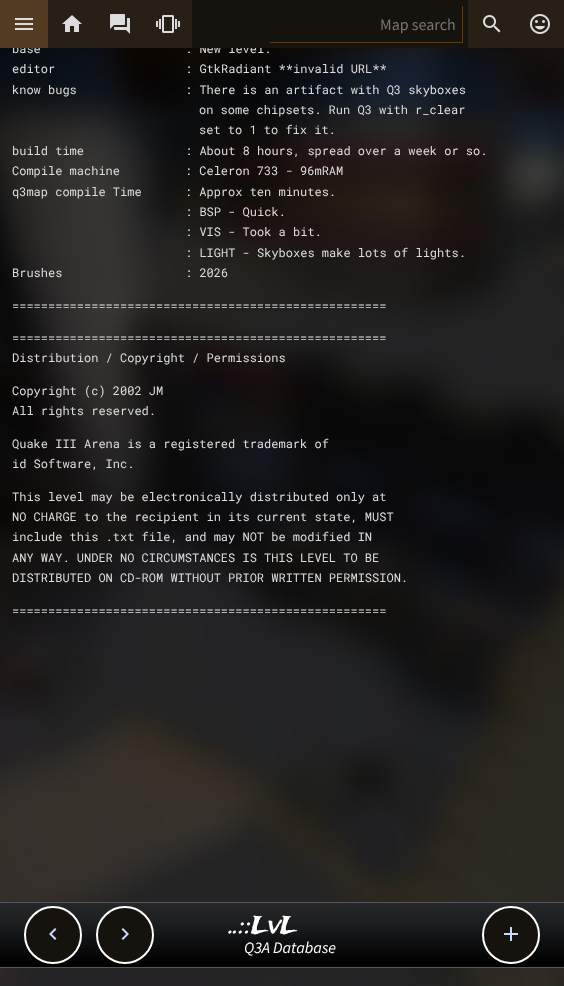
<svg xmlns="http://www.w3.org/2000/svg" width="564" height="986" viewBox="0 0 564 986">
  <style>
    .t1 { font: 12px Roboto Mono; fill: #ddd; }
    .t2 { font: 16px Source Sans Pro; fill: #757575; }
    .t3 { font: 24px Trade Winds; fill: #fff; }
    .t4 { font: italic 16px Source Sans Pro; fill: #fff; }
  </style>
  <rect width="100%" height="100%" fill="#fff"/>
  <image x="0" y="48" width="564" height="938" href="images/10.png"/>
  <text x="185" y="53" class="t1">: New level.</text>
  <rect x="192" y="0" width="276" height="48" fill="#16130f"/>
  <text x="12" y="53" class="t1">base</text>
  <rect x="0" y="0" width="48" height="48" fill="#543c22"/>
  <image x="15" y="18" width="18" height="12" href="images/1.png"/>
  <rect x="48" y="0" width="144" height="48" fill="#282016"/>
  <image x="62" y="15" width="20" height="17" href="images/2.png"/>
  <rect x="468" y="0" width="96" height="48" fill="#282016"/>
  <image x="483" y="15" width="18" height="18" href="images/3.png"/>
  <image x="530" y="14" width="20" height="20" href="images/4.png"/>
  <image x="110" y="14" width="20" height="20" href="images/5.png"/>
  <image x="156" y="15" width="24" height="18" href="images/6.png"/>
  <rect x="462" y="6" width="1" height="37" fill="#543c22"/>
  <rect x="270" y="42" width="193" height="1" fill="#543c22"/>
  <text x="380" y="30" class="t2">Map search</text>
  <text x="12" y="73" class="t1">editor</text>
  <text x="185" y="73" class="t1">: GtkRadiant **invalid URL**</text>
  <text x="12" y="94" class="t1">know bugs</text>
  <text x="185" y="94" class="t1">: There is an artifact with Q3 skyboxes</text>
  <text x="199" y="114" class="t1">on some chipsets. Run Q3 with r_clear</text>
  <text x="199" y="134" class="t1">set to 1 to fix it.</text>
  <text x="12" y="155" class="t1">build time</text>
  <text x="185" y="155" class="t1">: About 8 hours, spread over a week or so.</text>
  <text x="12" y="175" class="t1" xml:space="preserve">Compile machine         : Celeron 733 - 96mRAM</text>
  <text x="12" y="196" class="t1" xml:space="preserve">q3map compile Time      : Approx ten minutes.</text>
  <text x="185" y="216" class="t1">: BSP - Quick.</text>
  <text x="185" y="236" class="t1">: VIS - Took a bit.</text>
  <text x="185" y="257" class="t1">: LIGHT - Skyboxes make lots of lights.</text>
  <text x="12" y="277" class="t1">Brushes</text>
  <text x="185" y="277" class="t1">: 2026</text>
  <text x="12" y="310" class="t1">====================================================</text>
  <text x="12" y="342" class="t1">====================================================</text>
  <text x="12" y="362" class="t1">Distribution / Copyright / Permissions</text>
  <text x="12" y="395" class="t1">Copyright (c) 2002 JM</text>
  <text x="12" y="415" class="t1">All rights reserved.</text>
  <text x="12" y="448" class="t1">Quake III Arena is a registered trademark of</text>
  <text x="12" y="468" class="t1">id Software, Inc.</text>
  <text x="12" y="501" class="t1">This level may be electronically distributed only at</text>
  <text x="12" y="521" class="t1">NO CHARGE to the recipient in its current state, MUST</text>
  <text x="12" y="541" class="t1">include this .txt file, and may NOT be modified IN</text>
  <text x="12" y="562" class="t1">ANY WAY. UNDER NO CIRCUMSTANCES IS THIS LEVEL TO BE</text>
  <text x="12" y="582" class="t1">DISTRIBUTED ON CD-ROM WITHOUT PRIOR WRITTEN PERMISSION.</text>
  <text x="12" y="615" class="t1">====================================================</text>
  <image x="0" y="903" width="564" height="64" href="images/11.png"/>
  <circle cx="53" cy="935" r="28" fill="#16130f" stroke="#fff" stroke-width="2"/>
  <image x="49" y="928" width="8" height="12" href="images/7.png"/>
  <circle cx="125" cy="935" r="28" fill="#16130f" stroke="#fff" stroke-width="2"/>
  <image x="121" y="928" width="8" height="12" href="images/8.png"/>
  <circle cx="511" cy="935" r="28" fill="#16130f" stroke="#fff" stroke-width="2"/>
  <image x="504" y="927" width="14" height="14" href="images/9.png"/>
  <rect x="0" y="902" width="564" height="1" fill="#56585d"/>
  <rect x="0" y="967" width="564" height="1" fill="#56585d"/>
  <text x="230" y="933" class="t3">..::LvL</text>
  <text x="244" y="953" class="t4">Q3A Database</text>
</svg>
